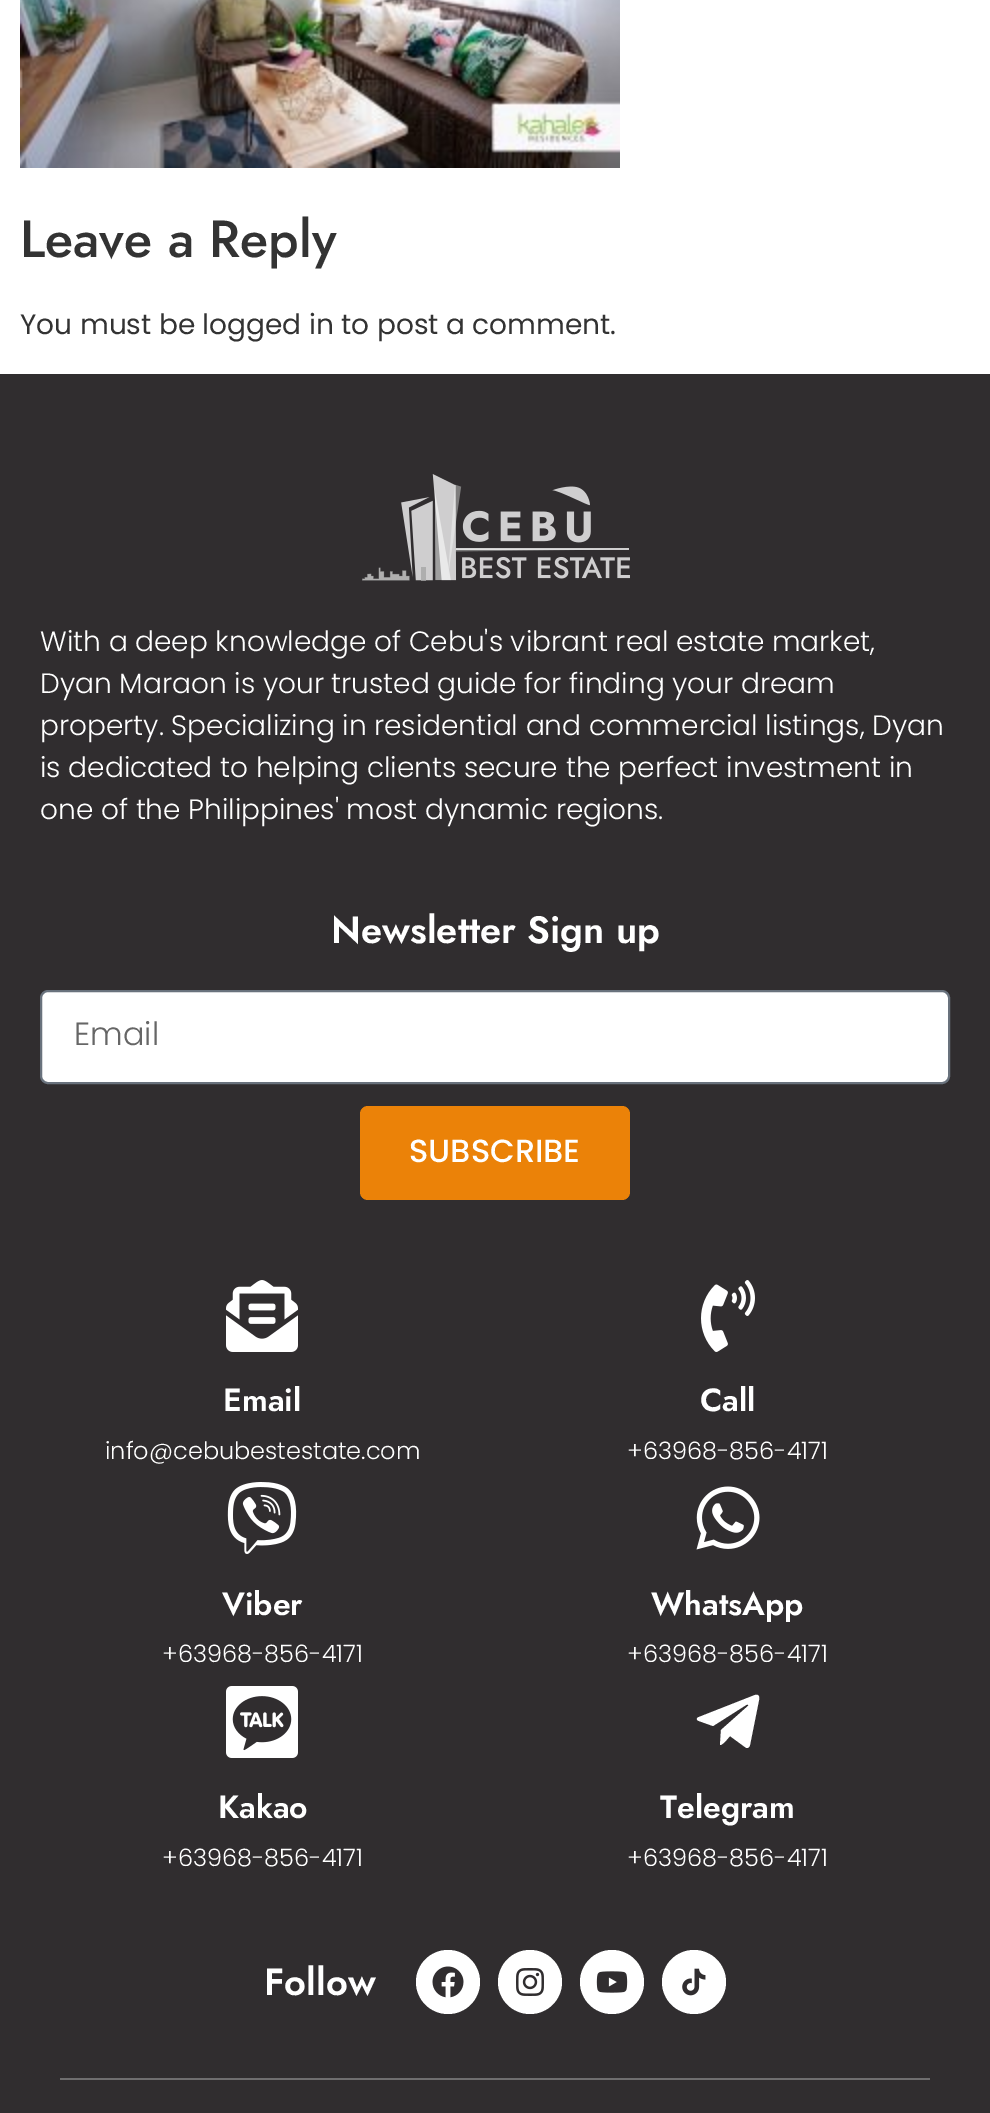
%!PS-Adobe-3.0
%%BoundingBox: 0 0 990 2113
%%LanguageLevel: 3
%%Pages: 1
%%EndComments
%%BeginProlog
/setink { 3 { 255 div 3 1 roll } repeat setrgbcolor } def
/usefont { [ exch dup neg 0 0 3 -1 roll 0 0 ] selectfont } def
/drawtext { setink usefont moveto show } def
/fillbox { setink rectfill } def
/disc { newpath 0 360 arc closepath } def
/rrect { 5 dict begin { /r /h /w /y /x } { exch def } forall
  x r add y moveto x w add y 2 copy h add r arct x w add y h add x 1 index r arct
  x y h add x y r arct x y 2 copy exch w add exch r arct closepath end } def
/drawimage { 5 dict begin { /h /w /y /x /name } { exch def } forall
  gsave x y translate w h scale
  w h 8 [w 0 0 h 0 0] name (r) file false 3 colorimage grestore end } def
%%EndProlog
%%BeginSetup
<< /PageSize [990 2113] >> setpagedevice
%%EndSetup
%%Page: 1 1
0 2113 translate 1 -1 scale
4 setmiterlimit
0 0 990 2113 255 255 255 fillbox
(assets/img1.rgb) 20 0 600 168 drawimage
(Leave a Reply) 20 257 /Jost-Medium 52 51 51 51 drawtext
(You must be logged in to post a comment.) 20 334 /Poppins-Regular 28 51 51 51 drawtext
0 374 990 1739 48 45 47 fillbox
(assets/img2.rgb) 362 474 268 107 drawimage
(With a deep knowledge of Cebu's vibrant real estate market,) 40 651 /Poppins-Light 28 255 255 255 drawtext
(Dyan Maraon is your trusted guide for finding your dream) 40 693 /Poppins-Light 28 255 255 255 drawtext
(property. Specializing in residential and commercial listings, Dyan) 40 735 /Poppins-Light 28 255 255 255 drawtext
(is dedicated to helping clients secure the perfect investment in) 40 777 /Poppins-Light 28 255 255 255 drawtext
(one of the Philippines' most dynamic regions.) 40 819 /Poppins-Light 28 255 255 255 drawtext
(Newsletter Sign up) 331 943 /Jost-SemiBold 38 255 255 255 drawtext
41 991 908 92 7 rrect gsave fill grestore
105 114 125 setink
2 setlinewidth
stroke
(Email) 74 1045 /Poppins-Light 32 102 102 102 drawtext
235 130 8 setink
360 1106 270 94 8 rrect fill
(SUBSCRIBE) 409 1162 /Poppins-Medium 32 255 255 255 drawtext
(assets/img3.rgb) 226 1280 72 72 drawimage
(Email) 223 1411 /Jost-SemiBold 32 255 255 255 drawtext
(info@cebubestestate.com) 105 1459 /Poppins-Light 24 255 255 255 drawtext
(assets/img4.rgb) 701 1280 54 72 drawimage
(Call) 700 1411 /Jost-SemiBold 32 255 255 255 drawtext
(+63968-856-4171) 627 1459 /Poppins-Light 24 255 255 255 drawtext
(assets/img5.rgb) 227 1482 70 72 drawimage
(Viber) 222 1615 /Jost-SemiBold 32 255 255 255 drawtext
(+63968-856-4171) 162 1662 /Poppins-Light 24 255 255 255 drawtext
(assets/img6.rgb) 696 1486 64 64 drawimage
(WhatsApp) 651 1615 /Jost-SemiBold 32 255 255 255 drawtext
(+63968-856-4171) 627 1662 /Poppins-Light 24 255 255 255 drawtext
(assets/img7.rgb) 226 1686 72 72 drawimage
(Kakao) 218 1818 /Jost-SemiBold 32 255 255 255 drawtext
(+63968-856-4171) 162 1866 /Poppins-Light 24 255 255 255 drawtext
759 1700 moveto 750 1745 lineto 749 1748 747 1749 745 1747 curveto 730 1736 lineto 728 1738 723 1745 720 1745 curveto 721 1730 lineto 748 1706 lineto 749 1705 748 1704 746 1705 curveto 713 1726 lineto 699 1721 lineto 696 1720 696 1718 699 1717 curveto 755 1695 lineto 758 1694 760 1696 759 1700 curveto closepath fill
(Telegram) 660 1818 /Jost-SemiBold 32 255 255 255 drawtext
(+63968-856-4171) 627 1866 /Poppins-Light 24 255 255 255 drawtext
(Follow) 264 1995 /Jost-SemiBold 38 255 255 255 drawtext
448 1982 32 disc fill
(assets/img8.rgb) 432 1966 32 32 drawimage
530 1982 32 disc fill
(assets/img9.rgb) 516 1968 28 28 drawimage
612 1982 32 disc fill
(assets/img10.rgb) 596 1971 32 22 drawimage
694 1982 32 disc fill
(assets/img11.rgb) 682 1968 24 28 drawimage
60 2078 870 2 111 110 111 fillbox
showpage
%%EOF
